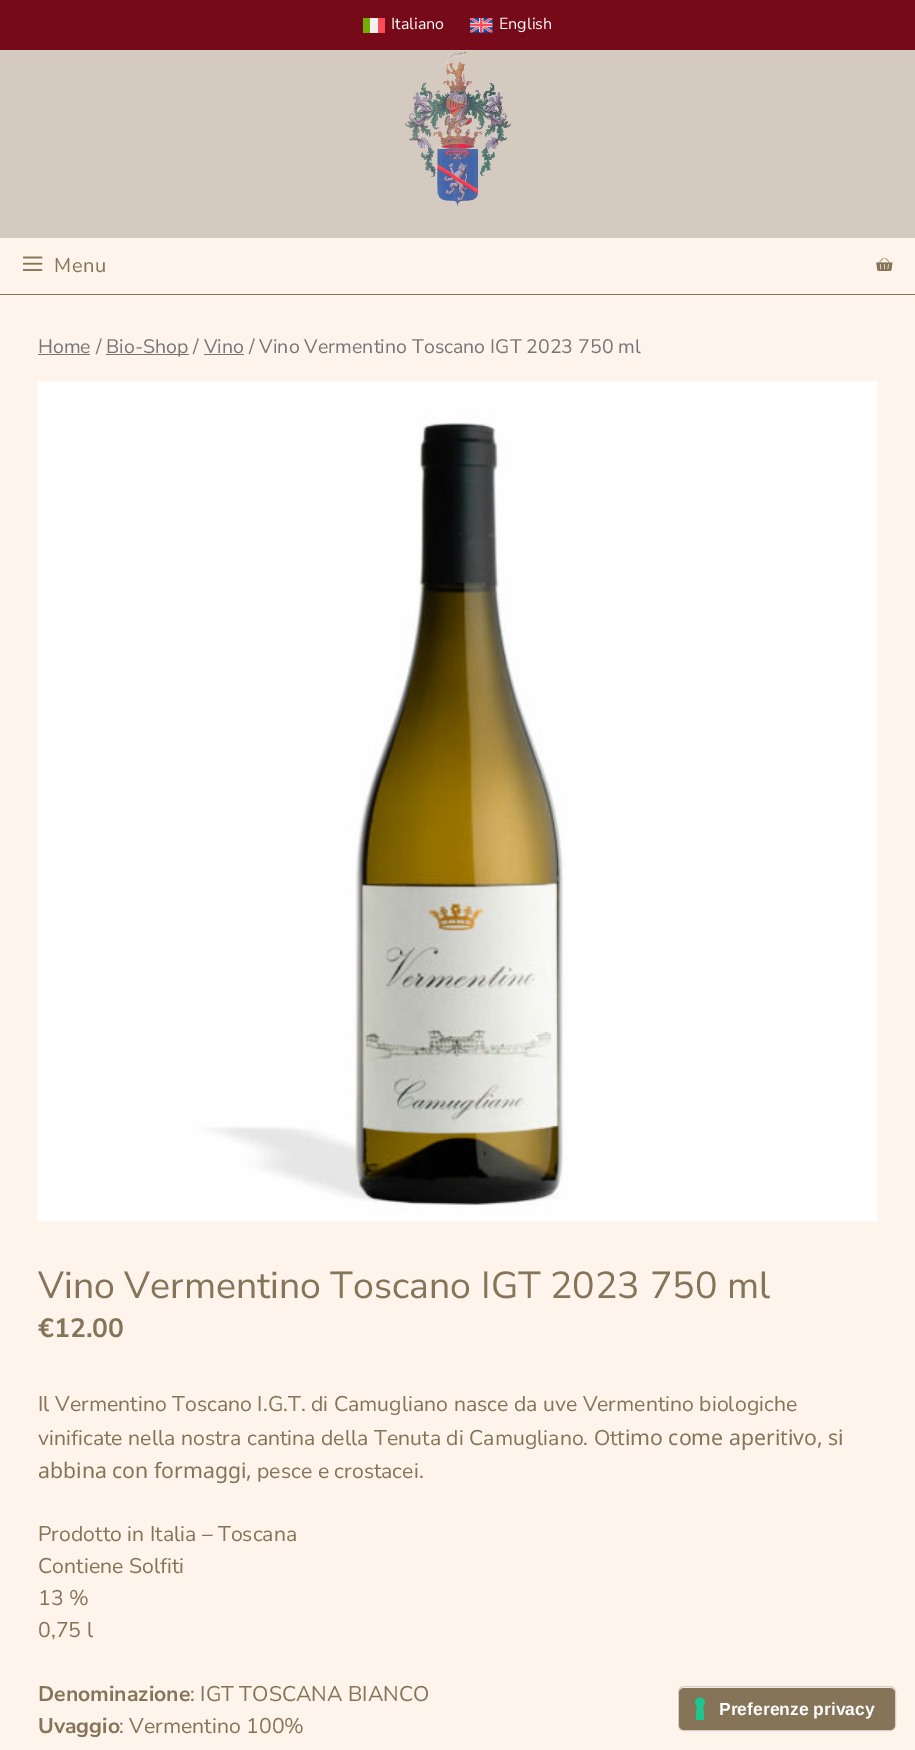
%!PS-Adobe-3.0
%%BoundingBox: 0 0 915 1750
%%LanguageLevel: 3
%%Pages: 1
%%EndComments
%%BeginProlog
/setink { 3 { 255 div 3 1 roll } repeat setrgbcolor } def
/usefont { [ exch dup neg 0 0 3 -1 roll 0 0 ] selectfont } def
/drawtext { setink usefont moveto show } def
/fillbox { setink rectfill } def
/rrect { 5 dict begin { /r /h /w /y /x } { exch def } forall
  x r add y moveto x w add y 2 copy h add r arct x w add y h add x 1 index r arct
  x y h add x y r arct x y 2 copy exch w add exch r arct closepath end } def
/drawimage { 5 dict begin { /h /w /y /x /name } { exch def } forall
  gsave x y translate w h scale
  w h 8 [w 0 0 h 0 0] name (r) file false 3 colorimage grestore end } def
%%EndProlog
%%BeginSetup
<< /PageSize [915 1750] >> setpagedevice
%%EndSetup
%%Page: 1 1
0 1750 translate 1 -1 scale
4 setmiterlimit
0 0 915 1750 255 255 255 fillbox
(assets/img1.rgb) 0 50 915 188 drawimage
0 0 915 50 118 10 25 fillbox
363 18 7 15 115 175 0 fillbox
370 18 8 15 240 240 240 fillbox
378 18 7 15 255 75 85 fillbox
(Italiano) 391 29 /NunitoSans-Regular 16 255 255 255 drawtext
(assets/img2.rgb) 470 18 23 15 drawimage
(English) 499 29 /NunitoSans-Regular 16 255 255 255 drawtext
(assets/img3.rgb) 404 50 107 156 drawimage
0 238 915 56 254 244 235 fillbox
0 294 915 1 134 116 88 fillbox
(assets/img4.rgb) 23 256 20 15 drawimage
/NunitoSans-Regular 20 usefont
54 272 moveto 0.5 0 (Menu) ashow
(assets/img5.rgb) 876 257 17 14 drawimage
0 295 915 1455 254 244 235 fillbox
38 354 52 1 118 118 118 fillbox
(Home /) 38 353 /NunitoSans-Regular 19.55 118 118 118 drawtext
106 354 83 1 118 118 118 fillbox
(Bio-Shop / Vino / Vino Vermentino Toscano IGT 2023 750 ml) 106 353 /NunitoSans-Regular 19.55 118 118 118 drawtext
204 354 40 1 118 118 118 fillbox
(assets/img6.rgb) 37 381 841 841 drawimage
(Vino Vermentino Toscano IGT 2023 750 ml) 38 1298 /NunitoSans-Regular 37.5 134 116 88 drawtext
(€12.00) 38 1337 /NunitoSans-Bold 26.5 134 116 88 drawtext
(Il Vermentino Toscano I.G.T. di Camugliano nasce da uve Vermentino biologiche) 38 1411 /NunitoSans-Regular 21.25 134 116 88 drawtext
(vinificate nella nostra cantina della Tenuta di Camugliano. Ot) 38 1445 /NunitoSans-Regular 21.25 134 116 88 drawtext
(timo come aperitivo, si) 617 1445 /NotoSans-Regular 21.25 134 116 88 drawtext
(abbina con formaggi,) 38 1478 /NotoSans-Regular 21.25 134 116 88 drawtext
(pesce e crostacei.) 257 1478 /NunitoSans-Regular 21.25 134 116 88 drawtext
(Prodotto in Italia – Toscana) 38 1541 /NunitoSans-Regular 21.25 134 116 88 drawtext
(Contiene Solfiti) 38 1573 /NunitoSans-Regular 21.25 134 116 88 drawtext
(13 %) 38 1605 /NunitoSans-Regular 21.25 134 116 88 drawtext
(0,75 l) 38 1637 /NunitoSans-Regular 21.25 134 116 88 drawtext
(Denominazione) 38 1701 /NunitoSans-Bold 21.25 134 116 88 drawtext
(: IGT TOSCANA BIANCO) 190 1701 /NunitoSans-Regular 21.25 134 116 88 drawtext
(Uvaggio) 38 1733 /NunitoSans-Bold 21.25 134 116 88 drawtext
(: Vermentino 100%) 119 1733 /NunitoSans-Regular 21.25 134 116 88 drawtext
216 207 200 setink
678.5 1686.5 217 44 5.5 rrect stroke
134 116 88 setink
679 1688 216 42 5 rrect fill
(assets/img7.rgb) 695 1697 10 23 drawimage
(Preferenze privacy) 719 1715 /LiberationSans-Bold 17.5 255 255 255 drawtext
showpage
%%EOF
